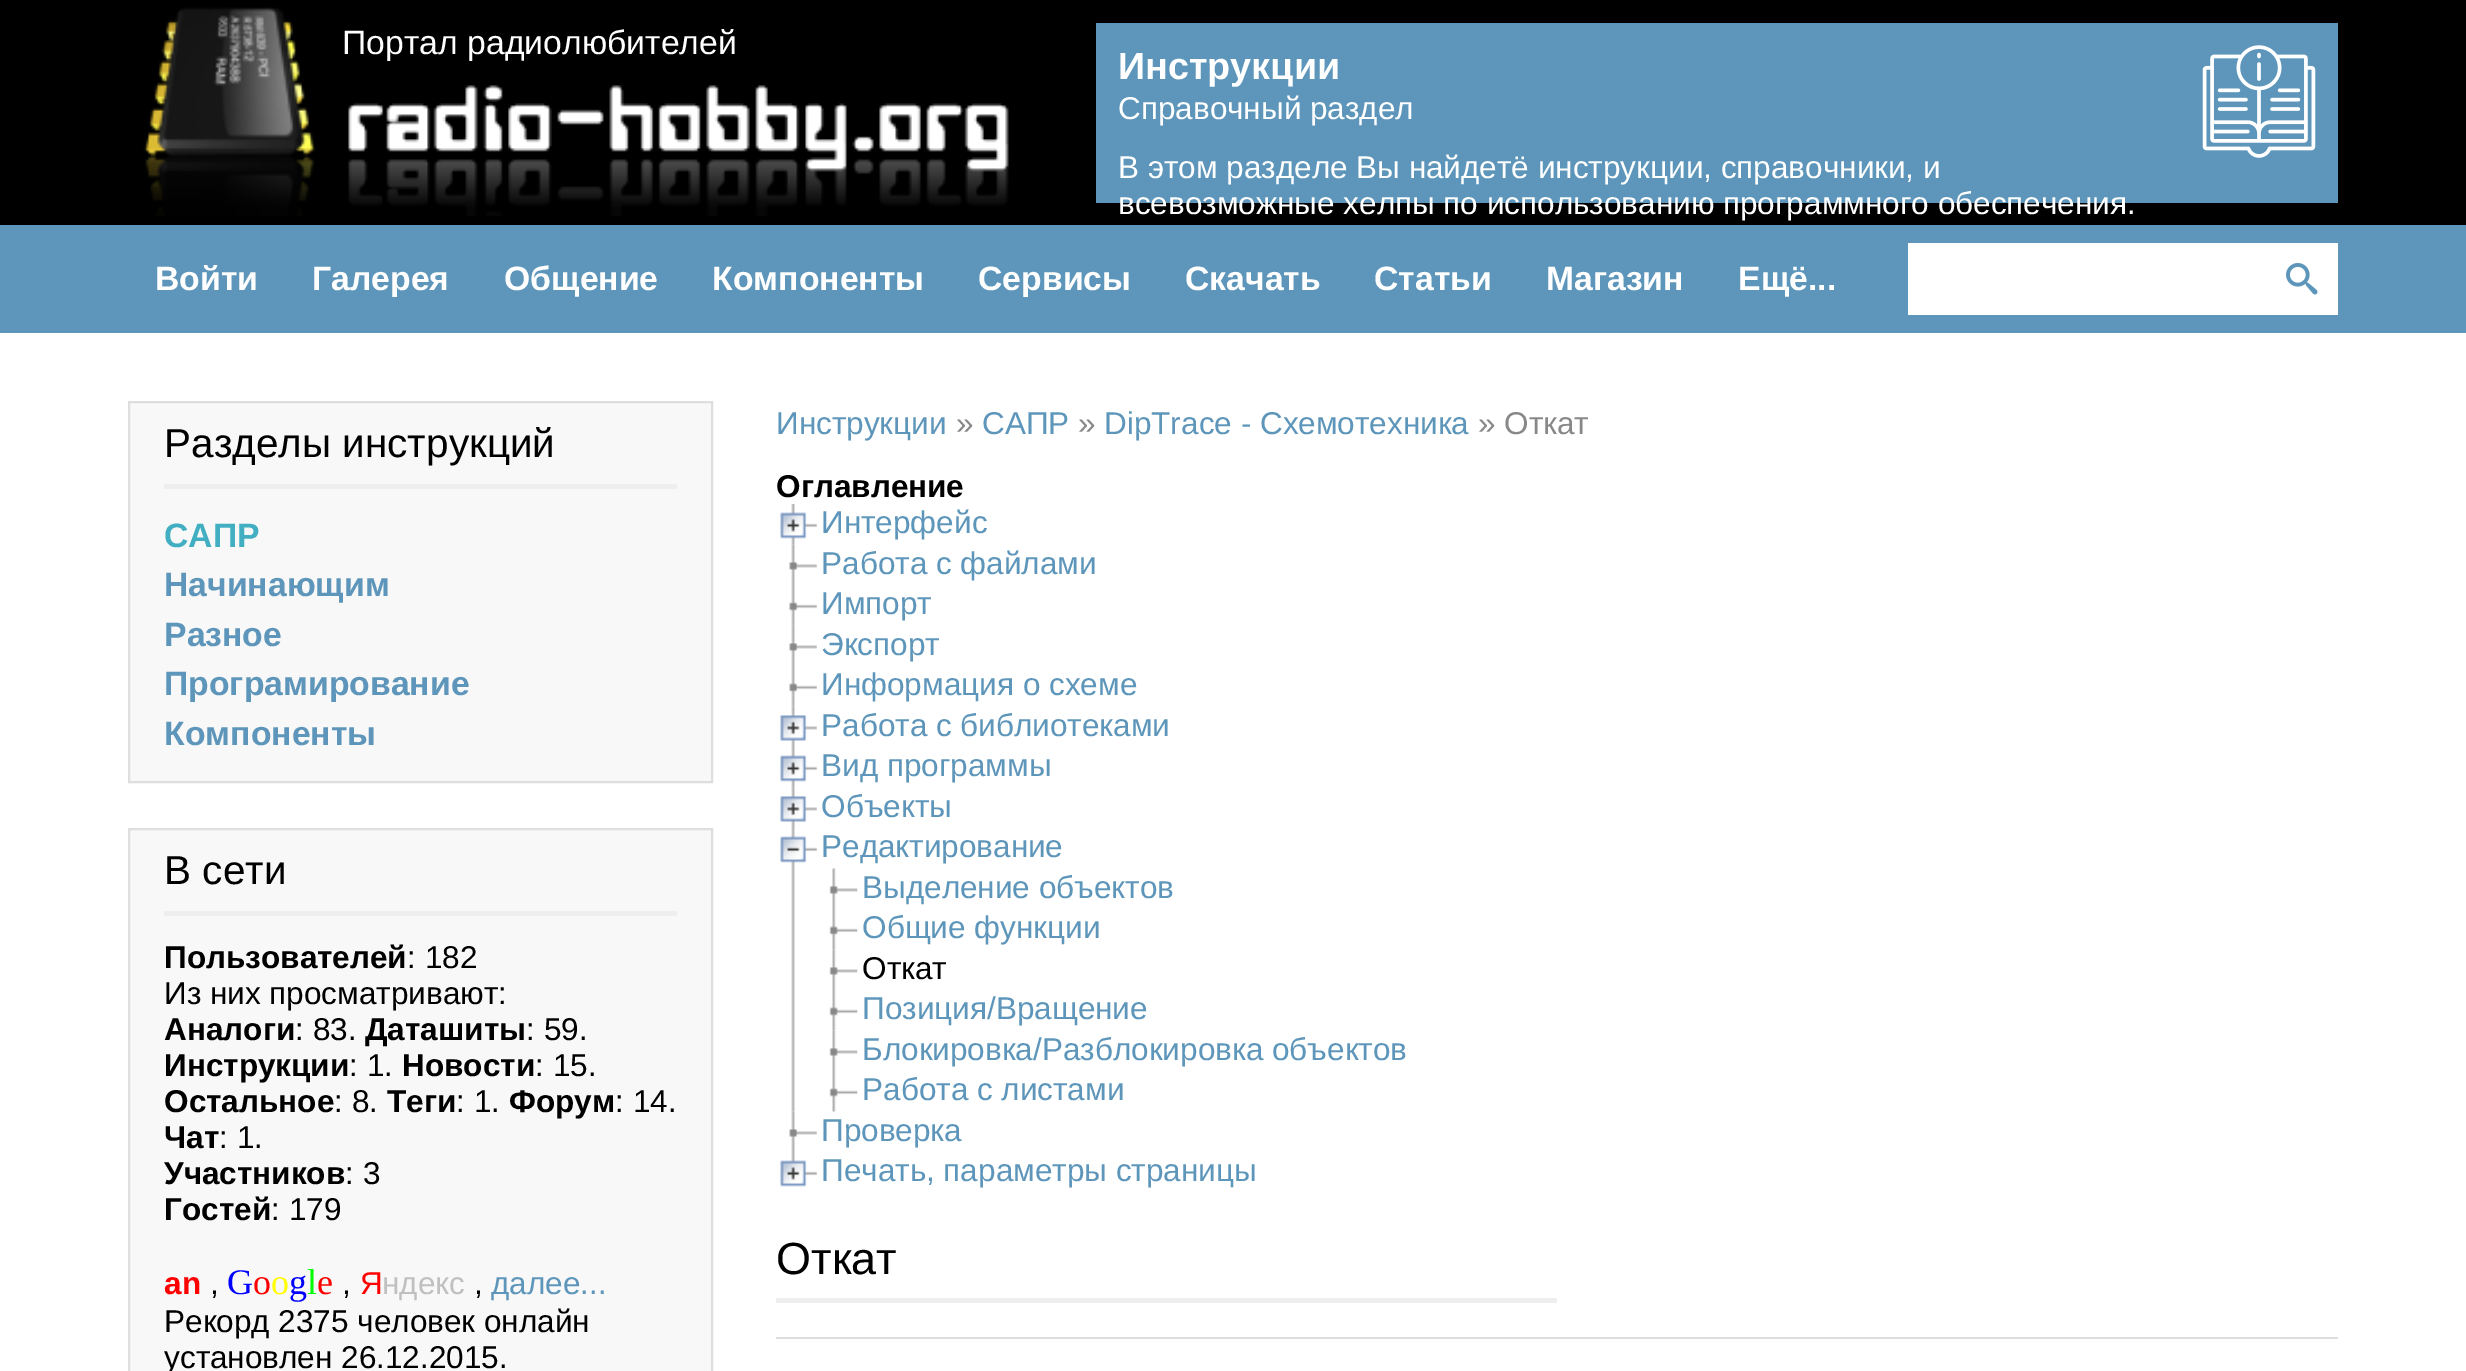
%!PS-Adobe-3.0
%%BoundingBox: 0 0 2466 1371
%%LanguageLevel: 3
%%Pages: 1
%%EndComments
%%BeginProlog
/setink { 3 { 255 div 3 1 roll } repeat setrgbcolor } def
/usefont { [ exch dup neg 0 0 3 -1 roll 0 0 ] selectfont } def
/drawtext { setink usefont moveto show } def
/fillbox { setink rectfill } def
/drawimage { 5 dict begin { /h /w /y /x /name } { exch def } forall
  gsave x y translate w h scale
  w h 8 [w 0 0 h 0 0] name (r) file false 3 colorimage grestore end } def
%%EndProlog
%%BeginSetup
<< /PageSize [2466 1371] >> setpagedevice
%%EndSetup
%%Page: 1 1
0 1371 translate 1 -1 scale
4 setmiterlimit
0 0 2466 1371 255 255 255 fillbox
0 0 2466 225 0 0 0 fillbox
(assets/img1.rgb) 143 7 866 209 drawimage
(Портал радиолюбителей) 342 54 /LiberationSans-Regular 33.75 255 255 255 drawtext
1096 23 1242 180 93 150 186 fillbox
(Инструкции) 1118 79 /LiberationSans-Bold 37.75 255 255 255 drawtext
(Справочный раздел) 1118 119 /LiberationSans-Regular 31.5 255 255 255 drawtext
(В этом разделе Вы найдетё инструкции, справочники, и) 1118 178 /LiberationSans-Regular 31.5 255 255 255 drawtext
(всевозможные хелпы по использованию программного обеспечения.) 1118 214 /LiberationSans-Regular 31.5 255 255 255 drawtext
(assets/img2.rgb) 2202 45 114 113 drawimage
0 225 2466 108 93 150 186 fillbox
(Войти) 155 290 /LiberationSans-Bold 33.75 255 255 255 drawtext
(Галерея) 312 290 /LiberationSans-Bold 33.75 255 255 255 drawtext
(Общение) 504 290 /LiberationSans-Bold 33.75 255 255 255 drawtext
(Компоненты) 712 290 /LiberationSans-Bold 33.75 255 255 255 drawtext
(Сервисы) 978 290 /LiberationSans-Bold 33.75 255 255 255 drawtext
(Скачать) 1185 290 /LiberationSans-Bold 33.75 255 255 255 drawtext
(Статьи) 1374 290 /LiberationSans-Bold 33.75 255 255 255 drawtext
(Магазин) 1546 290 /LiberationSans-Bold 33.75 255 255 255 drawtext
(Ещё...) 1738 290 /LiberationSans-Bold 33.75 255 255 255 drawtext
1908 243 430 72 255 255 255 fillbox
(assets/img3.rgb) 2286 263 32 32 drawimage
248 248 248 setink
129 402 moveto 712 402 lineto 712 782 lineto 129 782 lineto closepath gsave fill grestore
222 222 222 setink
2 setlinewidth
stroke
164 484 513 5 238 238 238 fillbox
(Разделы инструкций) 164 457 /LiberationSans-Regular 40.5 0 0 0 drawtext
(САПР) 164 547 /LiberationSans-Bold 33.75 66 174 194 drawtext
(Начинающим) 164 596 /LiberationSans-Bold 33.75 93 150 186 drawtext
(Разное) 164 646 /LiberationSans-Bold 33.75 93 150 186 drawtext
(Програмирование) 164 695 /LiberationSans-Bold 33.75 93 150 186 drawtext
(Компоненты) 164 745 /LiberationSans-Bold 33.75 93 150 186 drawtext
248 248 248 setink
129 829 moveto 712 829 lineto 712 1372 lineto 129 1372 lineto closepath gsave fill grestore
222 222 222 setink
stroke
164 911 513 5 238 238 238 fillbox
(В сети) 164 884 /LiberationSans-Regular 40.5 0 0 0 drawtext
(Пользователей) 164 968 /LiberationSans-Bold 31.5 0 0 0 drawtext
(: 182) 407 968 /LiberationSans-Regular 31.5 0 0 0 drawtext
(Из них просматривают:) 164 1004 /LiberationSans-Regular 31.5 0 0 0 drawtext
(Аналоги) 164 1040 /LiberationSans-Bold 31.5 0 0 0 drawtext
(: 83.) 295 1040 /LiberationSans-Regular 31.5 0 0 0 drawtext
(Даташиты) 365 1040 /LiberationSans-Bold 31.5 0 0 0 drawtext
(: 59.) 526 1040 /LiberationSans-Regular 31.5 0 0 0 drawtext
(Инструкции) 164 1076 /LiberationSans-Bold 31.5 0 0 0 drawtext
(: 1.) 349 1076 /LiberationSans-Regular 31.5 0 0 0 drawtext
(Новости) 402 1076 /LiberationSans-Bold 31.5 0 0 0 drawtext
(: 15.) 535 1076 /LiberationSans-Regular 31.5 0 0 0 drawtext
(Остальное) 164 1112 /LiberationSans-Bold 31.5 0 0 0 drawtext
(: 8.) 334 1112 /LiberationSans-Regular 31.5 0 0 0 drawtext
(Теги) 387 1112 /LiberationSans-Bold 31.5 0 0 0 drawtext
(: 1.) 456 1112 /LiberationSans-Regular 31.5 0 0 0 drawtext
(Форум) 509 1112 /LiberationSans-Bold 31.5 0 0 0 drawtext
(: 14.) 615 1112 /LiberationSans-Regular 31.5 0 0 0 drawtext
(Чат) 164 1148 /LiberationSans-Bold 31.5 0 0 0 drawtext
(: 1.) 219 1148 /LiberationSans-Regular 31.5 0 0 0 drawtext
(Участников) 164 1184 /LiberationSans-Bold 31.5 0 0 0 drawtext
(: 3) 345 1184 /LiberationSans-Regular 31.5 0 0 0 drawtext
(Гостей) 164 1220 /LiberationSans-Bold 31.5 0 0 0 drawtext
(: 179) 271 1220 /LiberationSans-Regular 31.5 0 0 0 drawtext
(an) 164 1294 /LiberationSans-Bold 31.5 255 0 0 drawtext
(,) 210 1294 /LiberationSans-Regular 31.5 0 0 0 drawtext
(G) 227 1294 /LiberationSerif-Regular 36 0 0 255 drawtext
(o) 253 1294 /LiberationSerif-Regular 36 255 0 0 drawtext
(o) 271 1294 /LiberationSerif-Regular 36 255 255 0 drawtext
(g) 289 1294 /LiberationSerif-Regular 36 0 0 255 drawtext
(l) 307 1294 /LiberationSerif-Regular 36 0 255 0 drawtext
(e) 317 1294 /LiberationSerif-Regular 36 255 0 0 drawtext
(,) 342 1294 /LiberationSans-Regular 31.5 0 0 0 drawtext
(Я) 360 1294 /LiberationSans-Regular 31.5 255 0 0 drawtext
(ндекс) 382 1294 /LiberationSans-Regular 31.5 192 192 192 drawtext
(,) 474 1294 /LiberationSans-Regular 31.5 0 0 0 drawtext
(далее...) 491 1294 /LiberationSans-Regular 31.5 93 150 186 drawtext
(Рекорд 2375 человек онлайн) 164 1332 /LiberationSans-Regular 31.5 0 0 0 drawtext
(установлен 26.12.2015.) 164 1368 /LiberationSans-Regular 31.5 0 0 0 drawtext
(Инструкции) 776 434 /LiberationSans-Regular 31.5 93 150 186 drawtext
(») 956 434 /LiberationSans-Regular 31.5 136 136 136 drawtext
(САПР) 982 434 /LiberationSans-Regular 31.5 93 150 186 drawtext
(») 1078 434 /LiberationSans-Regular 31.5 136 136 136 drawtext
(DipTrace - Схемотехника) 1104 434 /LiberationSans-Regular 31.5 93 150 186 drawtext
(» Откат) 1478 434 /LiberationSans-Regular 31.5 136 136 136 drawtext
(Оглавление) 776 497 /LiberationSans-Bold 31.5 0 0 0 drawtext
(assets/img4.rgb) 791 504 4 41 drawimage
(assets/img5.rgb) 780 512 37 27 drawimage
(Интерфейс) 821 533 /LiberationSans-Regular 31.5 93 150 186 drawtext
(assets/img6.rgb) 791 544 4 41 drawimage
(assets/img7.rgb) 789 562 28 8 drawimage
(Работа с файлами) 821 574 /LiberationSans-Regular 31.5 93 150 186 drawtext
(assets/img4.rgb) 791 585 4 41 drawimage
(assets/img8.rgb) 789 602 28 9 drawimage
(Импорт) 821 614 /LiberationSans-Regular 31.5 93 150 186 drawtext
(assets/img6.rgb) 791 625 4 41 drawimage
(assets/img7.rgb) 789 643 28 8 drawimage
(Экспорт) 821 655 /LiberationSans-Regular 31.5 93 150 186 drawtext
(assets/img4.rgb) 791 666 4 41 drawimage
(assets/img8.rgb) 789 683 28 9 drawimage
(Информация о схеме) 821 695 /LiberationSans-Regular 31.5 93 150 186 drawtext
(assets/img6.rgb) 791 706 4 41 drawimage
(assets/img9.rgb) 780 715 37 26 drawimage
(Работа с библиотеками) 821 736 /LiberationSans-Regular 31.5 93 150 186 drawtext
(assets/img4.rgb) 791 747 4 41 drawimage
(assets/img5.rgb) 780 755 37 27 drawimage
(Вид программы) 821 776 /LiberationSans-Regular 31.5 93 150 186 drawtext
(assets/img6.rgb) 791 787 4 41 drawimage
(assets/img9.rgb) 780 796 37 26 drawimage
(Объекты) 821 817 /LiberationSans-Regular 31.5 93 150 186 drawtext
(assets/img10.rgb) 791 828 4 284 drawimage
(assets/img11.rgb) 780 836 37 27 drawimage
(Редактирование) 821 857 /LiberationSans-Regular 31.5 93 150 186 drawtext
(assets/img12.rgb) 832 868 4 41 drawimage
(assets/img13.rgb) 829 886 29 8 drawimage
(Выделение объектов) 862 898 /LiberationSans-Regular 31.5 93 150 186 drawtext
(assets/img14.rgb) 832 909 4 41 drawimage
(assets/img15.rgb) 829 926 29 9 drawimage
(Общие функции) 862 938 /LiberationSans-Regular 31.5 93 150 186 drawtext
(assets/img16.rgb) 832 949 4 41 drawimage
(assets/img13.rgb) 829 967 29 8 drawimage
(Откат) 862 979 /LiberationSans-Regular 31.5 0 0 0 drawtext
(assets/img14.rgb) 832 990 4 41 drawimage
(assets/img15.rgb) 829 1007 29 9 drawimage
(Позиция/Вращение) 862 1019 /LiberationSans-Regular 31.5 93 150 186 drawtext
(assets/img16.rgb) 832 1030 4 41 drawimage
(assets/img13.rgb) 829 1048 29 8 drawimage
(Блокировка/Разблокировка объектов) 862 1060 /LiberationSans-Regular 31.5 93 150 186 drawtext
(assets/img14.rgb) 832 1071 4 41 drawimage
(assets/img15.rgb) 829 1088 29 9 drawimage
(Работа с листами) 862 1100 /LiberationSans-Regular 31.5 93 150 186 drawtext
(assets/img17.rgb) 791 1111 4 41 drawimage
(assets/img7.rgb) 789 1129 28 8 drawimage
(Проверка) 821 1141 /LiberationSans-Regular 31.5 93 150 186 drawtext
(assets/img18.rgb) 791 1152 4 10 drawimage
(assets/img19.rgb) 780 1160 37 27 drawimage
(Печать, параметры страницы) 821 1181 /LiberationSans-Regular 31.5 93 150 186 drawtext
776 1337 1562 2 221 221 221 fillbox
776 1298 781 5 238 238 238 fillbox
(Откат) 776 1274 /LiberationSans-Regular 45 0 0 0 drawtext
showpage
%%EOF
